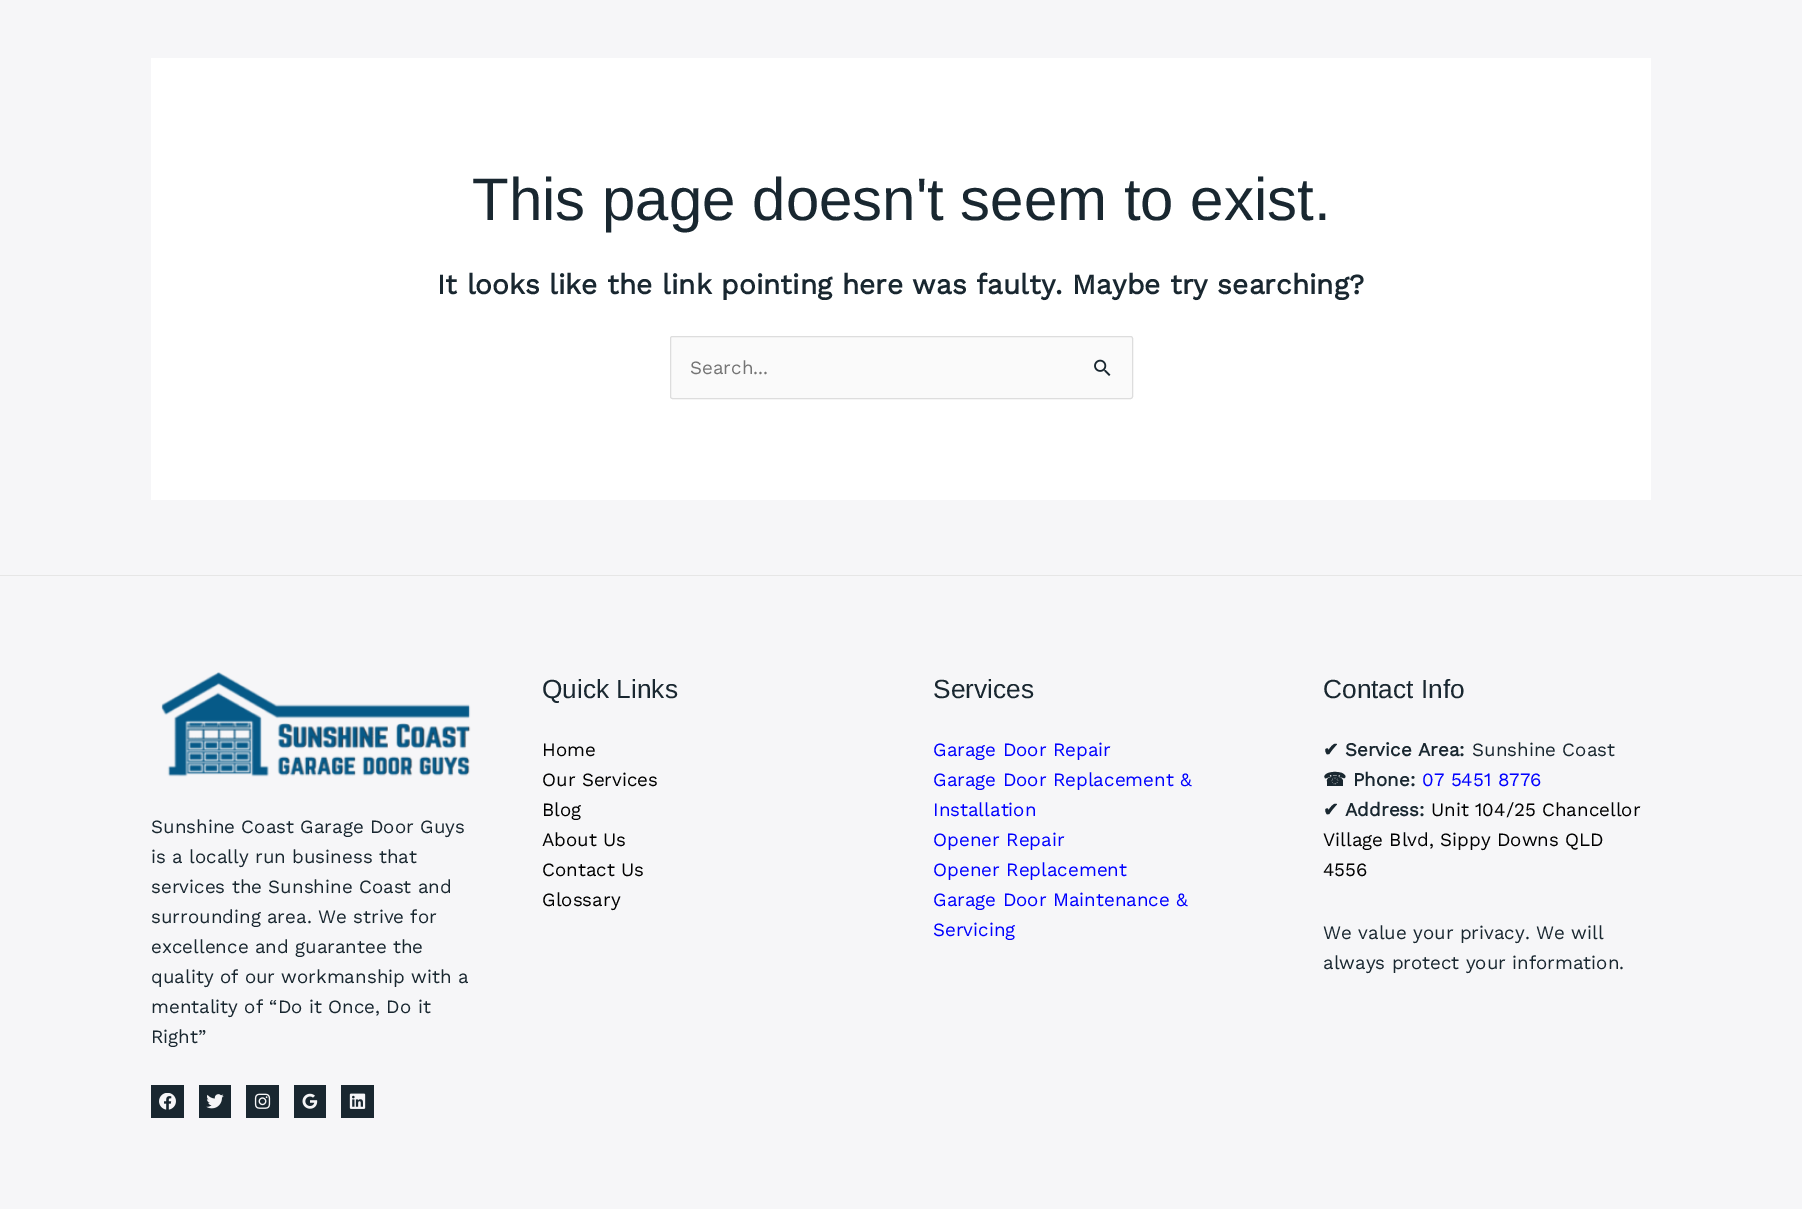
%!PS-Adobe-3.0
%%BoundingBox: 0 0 1802 1209
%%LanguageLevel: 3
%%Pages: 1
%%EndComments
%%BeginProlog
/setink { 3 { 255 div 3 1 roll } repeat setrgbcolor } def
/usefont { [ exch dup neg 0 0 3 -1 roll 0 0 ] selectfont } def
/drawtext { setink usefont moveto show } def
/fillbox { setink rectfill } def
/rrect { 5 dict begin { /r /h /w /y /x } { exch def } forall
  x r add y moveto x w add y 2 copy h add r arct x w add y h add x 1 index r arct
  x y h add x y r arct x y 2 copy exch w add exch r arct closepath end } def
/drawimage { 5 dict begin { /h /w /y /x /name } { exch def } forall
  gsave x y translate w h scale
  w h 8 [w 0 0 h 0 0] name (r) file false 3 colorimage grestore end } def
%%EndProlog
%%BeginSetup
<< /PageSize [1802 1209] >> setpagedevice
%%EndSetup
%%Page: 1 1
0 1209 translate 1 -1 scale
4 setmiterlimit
0 0 1802 1209 246 246 248 fillbox
151 58 1500 442 255 255 255 fillbox
(This page doesn't seem to exist.) 472 220 /LiberationSans-Regular 60 25 39 48 drawtext
(It looks like the link pointing here was faulty. Maybe try searching?) 437 294 /WorkSans-Bold 28.1 25 39 48 drawtext
250 250 250 setink
670.5 336.5 462 62 2 rrect gsave fill grestore
221 221 221 setink
stroke
(Search...) 690 374 /WorkSans-Regular 18.75 117 117 117 drawtext
(assets/img1.rgb) 1094 359 17 17 drawimage
0 575 1802 1 230 230 230 fillbox
(assets/img2.rgb) 161 672 310 105 drawimage
(Sunshine Coast Garage Door Guys) 151 833 /WorkSans-Regular 18.75 25 39 48 drawtext
(is a locally run business that) 151 863 /WorkSans-Regular 18.75 25 39 48 drawtext
(services the Sunshine Coast and) 151 893 /WorkSans-Regular 18.75 25 39 48 drawtext
(surrounding area. We strive for) 151 923 /WorkSans-Regular 18.75 25 39 48 drawtext
(excellence and guarantee the) 151 953 /WorkSans-Regular 18.75 25 39 48 drawtext
(quality of our workmanship with a) 151 983 /WorkSans-Regular 18.75 25 39 48 drawtext
(mentality of “Do it Once, Do it) 151 1013 /WorkSans-Regular 18.75 25 39 48 drawtext
(Right”) 151 1043 /WorkSans-Regular 18.75 25 39 48 drawtext
151 1085 33 33 25 39 48 fillbox
(assets/img3.rgb) 159 1093 17 17 drawimage
199 1085 32 33 25 39 48 fillbox
(assets/img4.rgb) 206 1094 18 15 drawimage
246 1085 33 33 25 39 48 fillbox
(assets/img5.rgb) 254 1093 17 16 drawimage
294 1085 32 33 25 39 48 fillbox
(assets/img6.rgb) 302 1093 16 16 drawimage
341 1085 33 33 25 39 48 fillbox
(assets/img7.rgb) 349 1093 17 16 drawimage
(Quick Links) 542 698 /LiberationSans-Regular 26.25 25 39 48 drawtext
(Home) 542 756 /WorkSans-Regular 18.75 0 0 0 drawtext
(Our Services) 542 786 /WorkSans-Regular 18.75 0 0 0 drawtext
(Blog) 542 816 /WorkSans-Regular 18.75 0 0 0 drawtext
(About Us) 542 846 /WorkSans-Regular 18.75 0 0 0 drawtext
(Contact Us) 542 876 /WorkSans-Regular 18.75 0 0 0 drawtext
(Glossary) 542 906 /WorkSans-Regular 18.75 0 0 0 drawtext
(Services) 933 698 /LiberationSans-Regular 26.25 25 39 48 drawtext
(Garage Door Repair) 933 756 /WorkSans-Regular 18.75 0 0 255 drawtext
(Garage Door Replacement &) 933 786 /WorkSans-Regular 18.75 0 0 255 drawtext
(Installation) 933 816 /WorkSans-Regular 18.75 0 0 255 drawtext
(Opener Repair) 933 846 /WorkSans-Regular 18.75 0 0 255 drawtext
(Opener Replacement) 933 876 /WorkSans-Regular 18.75 0 0 255 drawtext
(Garage Door Maintenance &) 933 906 /WorkSans-Regular 18.75 0 0 255 drawtext
(Servicing) 933 936 /WorkSans-Regular 18.75 0 0 255 drawtext
(Contact Info) 1323 698 /LiberationSans-Regular 26.25 25 39 48 drawtext
(✔) 1323 756 /DejaVuSans-Bold 18.75 25 39 48 drawtext
(Service Area:) 1345 756 /WorkSans-Bold 18.75 25 39 48 drawtext
(Sunshine Coast) 1472 756 /WorkSans-Regular 18.75 25 39 48 drawtext
(☎) 1323 786 /DejaVuSans-Bold 18.75 25 39 48 drawtext
(Phone:) 1353 786 /WorkSans-Bold 18.75 25 39 48 drawtext
(07 5451 8776) 1422 786 /WorkSans-Regular 18.75 0 0 255 drawtext
(✔) 1323 816 /DejaVuSans-Bold 18.75 25 39 48 drawtext
(Address:) 1345 816 /WorkSans-Bold 18.75 25 39 48 drawtext
(Unit 104/25 Chancellor) 1431 816 /WorkSans-Regular 18.75 0 0 0 drawtext
(Village Blvd, Sippy Downs QLD) 1323 846 /WorkSans-Regular 18.75 0 0 0 drawtext
(4556) 1323 876 /WorkSans-Regular 18.75 0 0 0 drawtext
(We value your privacy. We will) 1323 939 /WorkSans-Regular 18.75 25 39 48 drawtext
(always protect your information.) 1323 969 /WorkSans-Regular 18.75 25 39 48 drawtext
showpage
%%EOF
